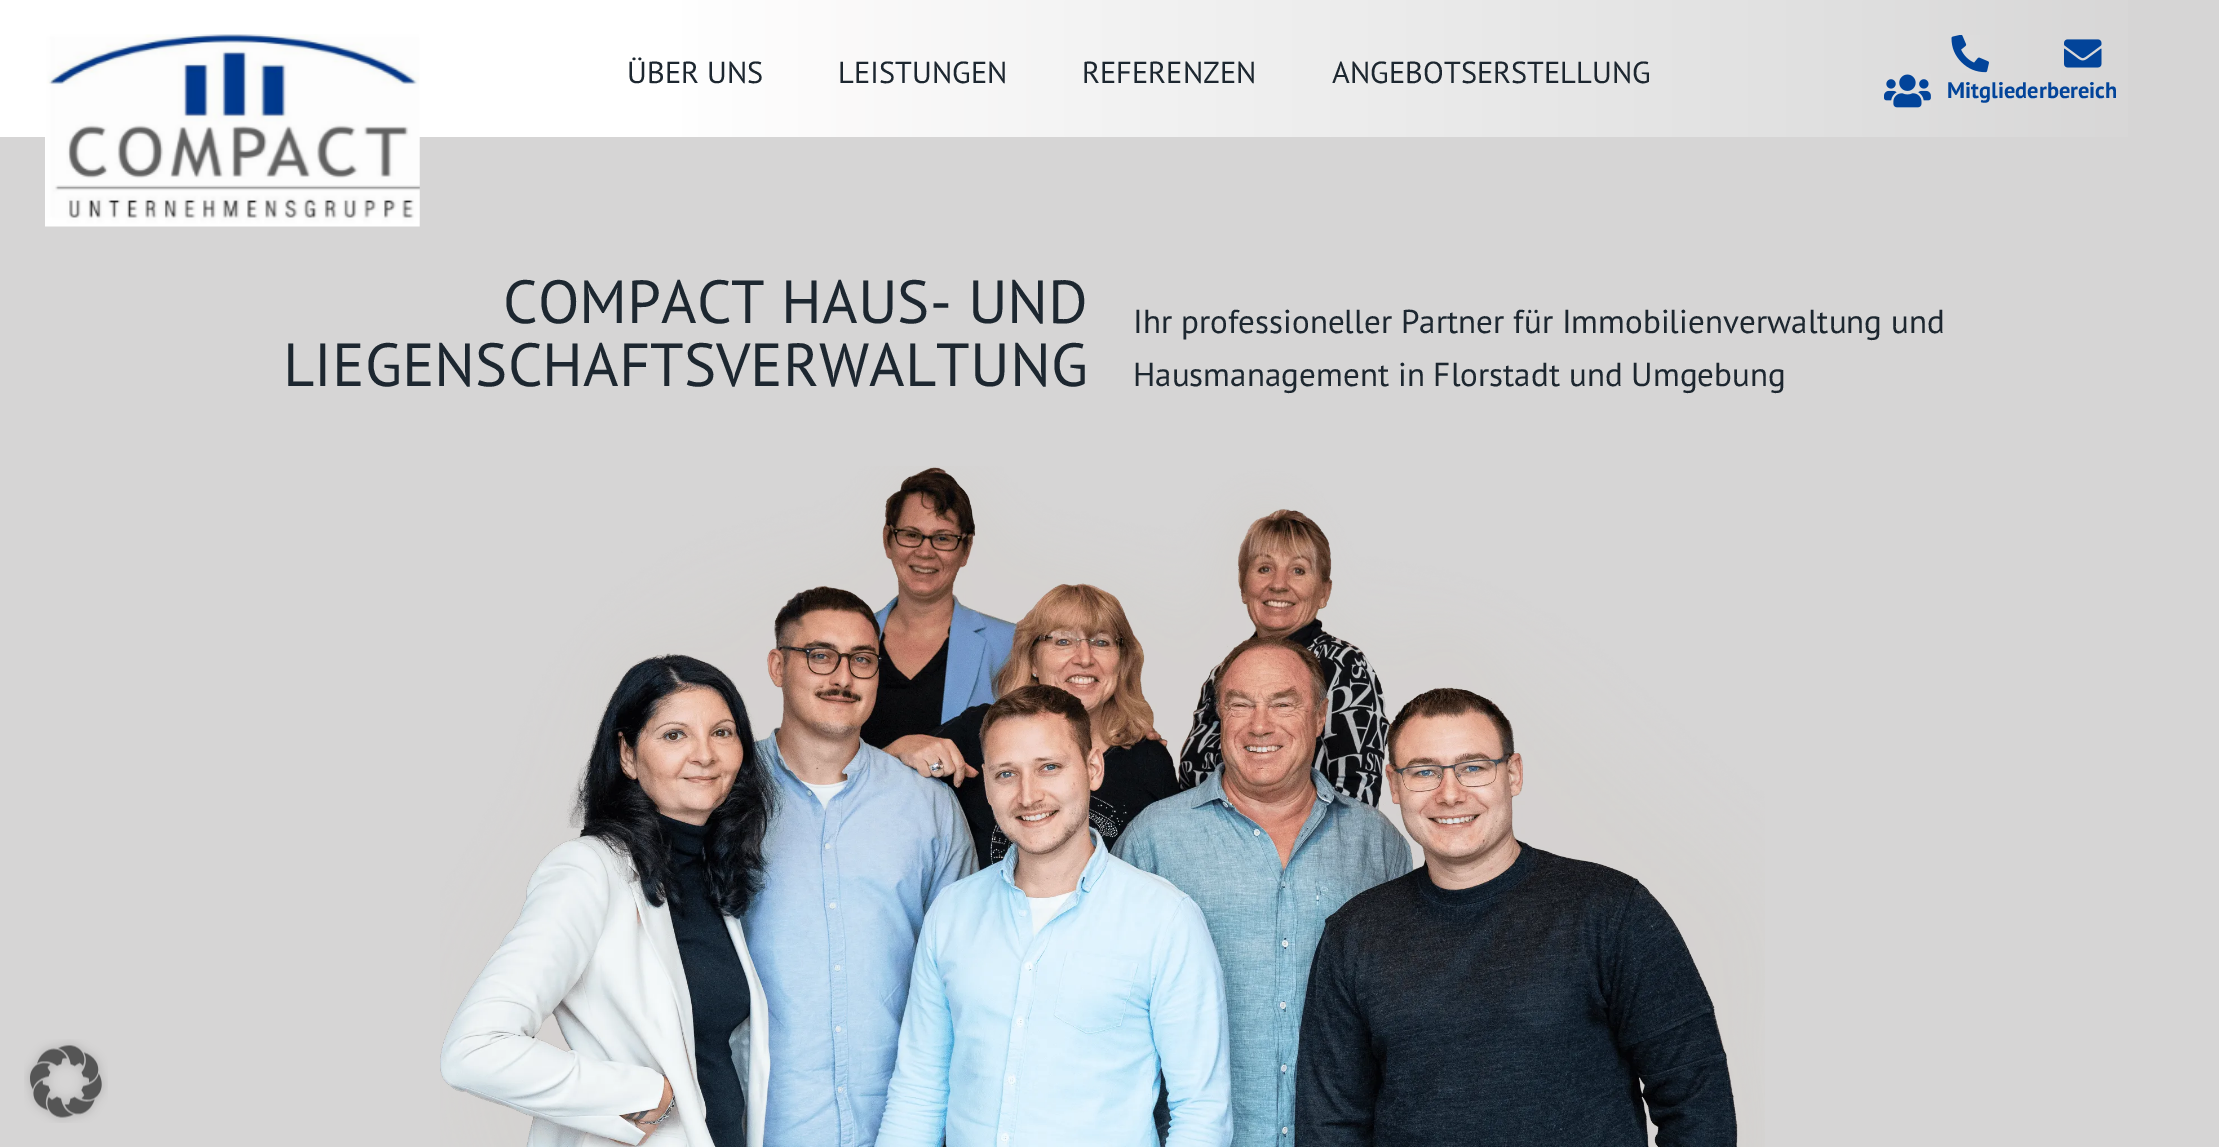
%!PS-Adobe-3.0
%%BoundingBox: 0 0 2219 1147
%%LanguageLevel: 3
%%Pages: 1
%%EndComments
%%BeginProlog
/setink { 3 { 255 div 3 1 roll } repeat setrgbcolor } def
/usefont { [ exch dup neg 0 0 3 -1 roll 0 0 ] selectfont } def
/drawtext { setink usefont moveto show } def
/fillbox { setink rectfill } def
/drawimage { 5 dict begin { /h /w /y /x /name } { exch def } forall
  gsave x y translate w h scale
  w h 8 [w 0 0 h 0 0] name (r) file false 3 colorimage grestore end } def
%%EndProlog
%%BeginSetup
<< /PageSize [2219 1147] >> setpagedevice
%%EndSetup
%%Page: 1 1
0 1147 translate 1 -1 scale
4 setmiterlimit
0 0 2219 1147 214 213 213 fillbox
gsave 0 0 moveto 2128 0 lineto 2128 137 lineto 0 137 lineto closepath clip newpath
<< /ShadingType 2 /ColorSpace /DeviceRGB /Coords [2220 68 0 68] /Extend [true true] /Function << /FunctionType 3 /Domain [0 1] /Functions [<< /FunctionType 2 /Domain [0 1] /C0 [0.839 0.835 0.835] /C1 [1 1 1] /N 1 >> << /FunctionType 2 /Domain [0 1] /C0 [1 1 1] /C1 [1 1 1] /N 1 >>] /Bounds [0.7] /Encode [0 1 0 1] >> >> shfill grestore
(assets/img1.rgb) 45 34 375 193 drawimage
(ÜBER UNS) 627 83 /PTSans-Regular 30.4 29 39 48 drawtext
(LEISTUNGEN) 838 83 /PTSans-Regular 30.4 29 39 48 drawtext
(REFERENZEN) 1082 83 /PTSans-Regular 30.4 29 39 48 drawtext
(ANGEBOTSERSTELLUNG) 1332 83 /PTSans-Regular 30.4 29 39 48 drawtext
(assets/img2.rgb) 1951 35 38 38 drawimage
(assets/img3.rgb) 2064 39 38 29 drawimage
(assets/img4.rgb) 1884 74 47 34 drawimage
(Mitgliederbereich) 1947 98 /PTSans-Bold 22.5 2 68 154 drawtext
(COMPACT HAUS- UND) 503 323 /PTSans-Regular 60.75 29 39 48 drawtext
(LIEGENSCHAFTSVERWALTUNG) 283 386 /PTSans-Regular 60.75 29 39 48 drawtext
(Ihr professioneller Partner für Immobilienverwaltung und) 1133 333 /PTSans-Regular 33.1 29 39 48 drawtext
(Hausmanagement in Florstadt und Umgebung) 1133 386 /PTSans-Regular 33.1 29 39 48 drawtext
(assets/img5.rgb) 440 466 1325 681 drawimage
(assets/img6.rgb) 24 1039 84 84 drawimage
showpage
%%EOF
